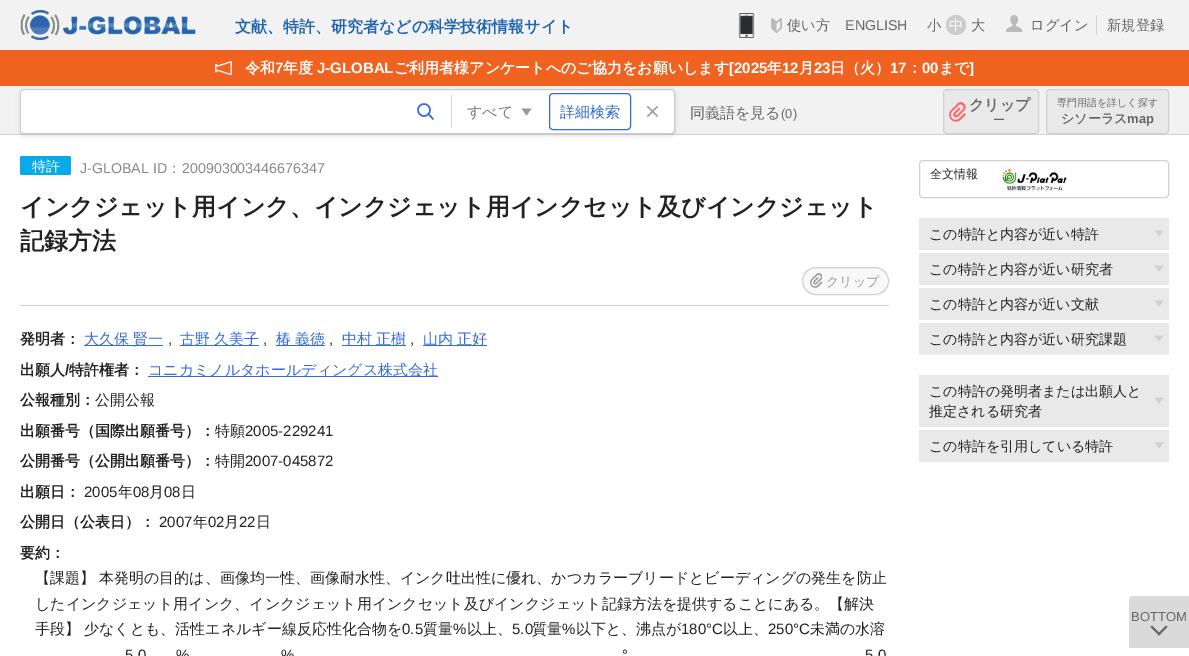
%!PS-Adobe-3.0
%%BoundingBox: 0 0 1189 656
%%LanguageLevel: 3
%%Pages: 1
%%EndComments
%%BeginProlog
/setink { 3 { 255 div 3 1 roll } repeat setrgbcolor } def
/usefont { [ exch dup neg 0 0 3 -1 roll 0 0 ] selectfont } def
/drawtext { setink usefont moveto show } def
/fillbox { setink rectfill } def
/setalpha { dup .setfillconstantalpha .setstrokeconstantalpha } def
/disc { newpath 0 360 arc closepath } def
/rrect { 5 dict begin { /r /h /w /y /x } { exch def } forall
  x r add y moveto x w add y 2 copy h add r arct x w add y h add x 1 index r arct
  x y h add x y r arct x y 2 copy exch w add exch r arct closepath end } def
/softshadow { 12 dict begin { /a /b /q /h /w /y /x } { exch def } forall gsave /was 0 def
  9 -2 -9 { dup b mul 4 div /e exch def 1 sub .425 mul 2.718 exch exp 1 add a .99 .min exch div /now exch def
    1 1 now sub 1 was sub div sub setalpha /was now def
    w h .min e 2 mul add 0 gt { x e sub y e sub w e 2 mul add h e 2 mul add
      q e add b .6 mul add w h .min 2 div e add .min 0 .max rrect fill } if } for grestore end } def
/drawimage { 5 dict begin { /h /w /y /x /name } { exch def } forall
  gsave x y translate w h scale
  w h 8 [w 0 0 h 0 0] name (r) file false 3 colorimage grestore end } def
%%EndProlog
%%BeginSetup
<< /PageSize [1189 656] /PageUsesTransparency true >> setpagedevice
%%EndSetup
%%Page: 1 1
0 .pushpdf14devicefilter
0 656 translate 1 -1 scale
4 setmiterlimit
0 0 1189 656 255 255 255 fillbox
0 0 1189 50 242 242 242 fillbox
(assets/img1.rgb) 20 10 176 30 drawimage
(文献、特許、研究者などの科学技術情報サイト) 235 32 /WenQuanYiZenHei-Bold 16 32 100 177 drawtext
(assets/img2.rgb) 738 13 17 25 drawimage
(assets/img3.rgb) 771 18 11 15 drawimage
(使い方) 787 30 /WenQuanYiZenHei-Medium 14.25 102 102 102 drawtext
(ENGLISH) 845 30 /LiberationSans-Regular 14.25 102 102 102 drawtext
(小) 927 30 /WenQuanYiZenHei-Medium 14.25 102 102 102 drawtext
204 204 204 setink
956 25 10 disc fill
(中) 949 30 /WenQuanYiZenHei-Medium 14.25 255 255 255 drawtext
(大) 971 30 /WenQuanYiZenHei-Medium 14.25 102 102 102 drawtext
(assets/img4.rgb) 1006 15 17 17 drawimage
1096 15 1 20 209 209 209 fillbox
(ログイン) 1030 30 /WenQuanYiZenHei-Medium 14.25 102 102 102 drawtext
(新規登録) 1107 30 /WenQuanYiZenHei-Medium 14.25 102 102 102 drawtext
0 86 1189 48 242 242 242 fillbox
0 134 1189 1 209 209 209 fillbox
0 50 1189 36 239 98 32 fillbox
(assets/img5.rgb) 215 61 17 14 drawimage
(令和) 245 73 /WenQuanYiZenHei-Bold 15 255 255 255 drawtext
(7) 275 73 /LiberationSans-Bold 15 255 255 255 drawtext
(年度) 283 73 /WenQuanYiZenHei-Bold 15 255 255 255 drawtext
(J-GLOBAL) 317 73 /LiberationSans-Bold 15 255 255 255 drawtext
(ご利用者様アンケートへのご協力をお願いします) 394 73 /WenQuanYiZenHei-Bold 15 255 255 255 drawtext
([2025) 729 73 /LiberationSans-Bold 15 255 255 255 drawtext
(年) 767 73 /WenQuanYiZenHei-Bold 15 255 255 255 drawtext
(12) 782 73 /LiberationSans-Bold 15 255 255 255 drawtext
(月) 799 73 /WenQuanYiZenHei-Bold 15 255 255 255 drawtext
(23) 814 73 /LiberationSans-Bold 15 255 255 255 drawtext
(日（火）) 830 73 /WenQuanYiZenHei-Bold 15 255 255 255 drawtext
(17) 890 73 /LiberationSans-Bold 15 255 255 255 drawtext
(：) 907 73 /WenQuanYiZenHei-Bold 15 255 255 255 drawtext
(00) 922 73 /LiberationSans-Bold 15 255 255 255 drawtext
(まで) 939 73 /WenQuanYiZenHei-Bold 15 255 255 255 drawtext
(]) 969 73 /LiberationSans-Bold 15 255 255 255 drawtext
0 0 0 setink
20 91 655 45 4 2.5 0.1 softshadow
255 255 255 setink
20.5 89.5 654 44 3.5 rrect gsave fill grestore
204 204 204 setink
stroke
gsave
21 90 653 43 3 rrect clip newpath
255 255 255 setink
21 90 380 43 4 rrect fill
grestore
52 106 217 setink
1.5 setlinewidth
424 110 6 disc stroke
1 setlinecap
1 setlinejoin
428.5 114 moveto 433 119 lineto stroke
153 153 153 setink
531.5 108.5 moveto 526.5 115.5 lineto 521.5 108.5 lineto closepath fill
451 95 1 33 209 209 209 fillbox
(すべて) 467 117 /WenQuanYiZenHei-Medium 15 119 119 119 drawtext
52 106 217 setink
1 setlinewidth
0 setlinecap
0 setlinejoin
549.5 93.5 81 36 3.5 rrect stroke
(詳細検索) 560 117 /WenQuanYiZenHei-Medium 15 52 106 217 drawtext
(assets/img6.rgb) 647 106 11 11 drawimage
(同義語を見る) 690 118 /WenQuanYiZenHei-Medium 15 102 102 102 drawtext
(\(0\)) 781 118 /LiberationSans-Regular 13 102 102 102 drawtext
233 233 233 setink
943 89 96 45 4 rrect fill
(assets/img7.rgb) 949 102 17 20 drawimage
209 209 209 setink
943.5 89.5 95 44 3.5 rrect stroke
(クリップ) 969 110 /WenQuanYiZenHei-Bold 15 102 102 102 drawtext
(ー) 993 124 /WenQuanYiZenHei-Medium 12 102 102 102 drawtext
233 233 233 setink
1046.5 89.5 122 44 3.5 rrect gsave fill grestore
209 209 209 setink
stroke
(専門用語を詳しく探す) 1057 106 /WenQuanYiZenHei-Medium 10 102 102 102 drawtext
(シソーラス) 1061 123 /WenQuanYiZenHei-Bold 13 102 102 102 drawtext
(map) 1127 123 /LiberationSans-Bold 13 102 102 102 drawtext
20 305 869 1 209 209 209 fillbox
6 171 232 setink
20 156 51 19 2 rrect fill
(特許) 32 171 /WenQuanYiZenHei-Medium 14 255 255 255 drawtext
(J-GLOBAL ID) 80 173 /LiberationSans-Regular 14.25 136 136 136 drawtext
(：) 167 173 /WenQuanYiZenHei-Medium 14.25 136 136 136 drawtext
(200903003446676347) 182 173 /LiberationSans-Regular 14.25 136 136 136 drawtext
(インクジェット用インク、インクジェット用インクセット及びインクジェット) 20 215 /WenQuanYiZenHei-Bold 24 34 34 34 drawtext
(記録方法) 20 249 /WenQuanYiZenHei-Bold 24 34 34 34 drawtext
248 248 248 setink
802 267 87 28 14 rrect fill
(assets/img8.rgb) 810 273 12 15 drawimage
209 209 209 setink
802.5 267.5 86 27 13.5 rrect stroke
(クリップ) 826 286 /WenQuanYiZenHei-Medium 13 153 153 153 drawtext
(発明者：) 20 344 /WenQuanYiZenHei-Bold 15 34 34 34 drawtext
84 345 79 1 52 106 217 fillbox
(大久保) 84 344 /WenQuanYiZenHei-Medium 15 52 106 217 drawtext
(賢一) 133 344 /WenQuanYiZenHei-Medium 15 52 106 217 drawtext
(,) 168 344 /LiberationSans-Regular 15 34 34 34 drawtext
180 345 79 1 52 106 217 fillbox
(古野) 180 344 /WenQuanYiZenHei-Medium 15 52 106 217 drawtext
(久美子) 214 344 /WenQuanYiZenHei-Medium 15 52 106 217 drawtext
(,) 263 344 /LiberationSans-Regular 15 34 34 34 drawtext
276 345 49 1 52 106 217 fillbox
(椿) 276 344 /WenQuanYiZenHei-Medium 15 52 106 217 drawtext
(義徳) 295 344 /WenQuanYiZenHei-Medium 15 52 106 217 drawtext
(,) 329 344 /LiberationSans-Regular 15 34 34 34 drawtext
342 345 64 1 52 106 217 fillbox
(中村) 342 344 /WenQuanYiZenHei-Medium 15 52 106 217 drawtext
(正樹) 376 344 /WenQuanYiZenHei-Medium 15 52 106 217 drawtext
(,) 410 344 /LiberationSans-Regular 15 34 34 34 drawtext
423 345 64 1 52 106 217 fillbox
(山内) 423 344 /WenQuanYiZenHei-Medium 15 52 106 217 drawtext
(正好) 457 344 /WenQuanYiZenHei-Medium 15 52 106 217 drawtext
(出願人) 20 375 /WenQuanYiZenHei-Bold 15 34 34 34 drawtext
(/) 65 375 /LiberationSans-Bold 15 34 34 34 drawtext
(特許権者：) 69 375 /WenQuanYiZenHei-Bold 15 34 34 34 drawtext
148 376 290 1 52 106 217 fillbox
(コニカミノルタホールディングス株式会社) 148 375 /WenQuanYiZenHei-Medium 15 52 106 217 drawtext
(公報種別：) 20 405 /WenQuanYiZenHei-Bold 15 34 34 34 drawtext
(公開公報) 95 405 /WenQuanYiZenHei-Medium 15 34 34 34 drawtext
(出願番号（国際出願番号）：) 20 436 /WenQuanYiZenHei-Bold 15 34 34 34 drawtext
(特願) 215 436 /WenQuanYiZenHei-Medium 15 34 34 34 drawtext
(2005-229241) 245 436 /LiberationSans-Regular 15 34 34 34 drawtext
(公開番号（公開出願番号）：) 20 466 /WenQuanYiZenHei-Bold 15 34 34 34 drawtext
(特開) 215 466 /WenQuanYiZenHei-Medium 15 34 34 34 drawtext
(2007-045872) 245 466 /LiberationSans-Regular 15 34 34 34 drawtext
(出願日：) 20 497 /WenQuanYiZenHei-Bold 15 34 34 34 drawtext
(2005) 84 497 /LiberationSans-Regular 15 34 34 34 drawtext
(年) 118 497 /WenQuanYiZenHei-Medium 15 34 34 34 drawtext
(08) 133 497 /LiberationSans-Regular 15 34 34 34 drawtext
(月) 149 497 /WenQuanYiZenHei-Medium 15 34 34 34 drawtext
(08) 164 497 /LiberationSans-Regular 15 34 34 34 drawtext
(日) 181 497 /WenQuanYiZenHei-Medium 15 34 34 34 drawtext
(公開日（公表日）：) 20 527 /WenQuanYiZenHei-Bold 15 34 34 34 drawtext
(2007) 159 527 /LiberationSans-Regular 15 34 34 34 drawtext
(年) 193 527 /WenQuanYiZenHei-Medium 15 34 34 34 drawtext
(02) 208 527 /LiberationSans-Regular 15 34 34 34 drawtext
(月) 224 527 /WenQuanYiZenHei-Medium 15 34 34 34 drawtext
(22) 239 527 /LiberationSans-Regular 15 34 34 34 drawtext
(日) 256 527 /WenQuanYiZenHei-Medium 15 34 34 34 drawtext
(要約：) 20 558 /WenQuanYiZenHei-Bold 15 34 34 34 drawtext
(【課題】) 35 583 /WenQuanYiZenHei-Medium 15 34 34 34 drawtext
(本発明の目的は、画像均一性、画像耐水性、インク吐出性に優れ、かつカラーブリードとビーディングの発生を防止) 99 583 /WenQuanYiZenHei-Medium 15 34 34 34 drawtext
(したインクジェット用インク、インクジェット用インクセット及びインクジェット記録方法を提供することにある。【解決) 35 609 /WenQuanYiZenHei-Medium 15 34 34 34 drawtext
(手段】) 35 634 /WenQuanYiZenHei-Medium 15 34 34 34 drawtext
(少なくとも、活性エネルギー線反応性化合物を) 84 634 /WenQuanYiZenHei-Medium 15 34 34 34 drawtext
(0.5) 402 634 /LiberationSans-Regular 15 34 34 34 drawtext
(質量) 423 634 /WenQuanYiZenHei-Medium 15 34 34 34 drawtext
(%) 453 634 /LiberationSans-Regular 15 34 34 34 drawtext
(以上、) 467 634 /WenQuanYiZenHei-Medium 15 34 34 34 drawtext
(5.0) 512 634 /LiberationSans-Regular 15 34 34 34 drawtext
(質量) 532 634 /WenQuanYiZenHei-Medium 15 34 34 34 drawtext
(%) 562 634 /LiberationSans-Regular 15 34 34 34 drawtext
(以下と、沸点が) 576 634 /WenQuanYiZenHei-Medium 15 34 34 34 drawtext
(180°C) 681 634 /LiberationSans-Regular 15 34 34 34 drawtext
(以上、) 723 634 /WenQuanYiZenHei-Medium 15 34 34 34 drawtext
(250°C) 768 634 /LiberationSans-Regular 15 34 34 34 drawtext
(未満の水溶) 810 634 /WenQuanYiZenHei-Medium 15 34 34 34 drawtext
(5.0) 125 660 /LiberationSans-Regular 15 34 34 34 drawtext
(%) 176 660 /LiberationSans-Regular 15 34 34 34 drawtext
(%) 281 660 /LiberationSans-Regular 15 34 34 34 drawtext
(°) 622 660 /LiberationSans-Regular 15 34 34 34 drawtext
(5.0) 865 660 /LiberationSans-Regular 15 34 34 34 drawtext
209 209 209 setink
919.5 160.5 249 37 3.5 rrect stroke
(全文情報) 930 178 /WenQuanYiZenHei-Medium 12 34 34 34 drawtext
(assets/img9.rgb) 999 167 68 25 drawimage
919 218 250 32 233 233 233 fillbox
209 209 209 setink
1163.5 230.5 moveto 1159 236.5 lineto 1154.5 230.5 lineto closepath fill
(この特許と内容が近い特許) 929 239 /WenQuanYiZenHei-Medium 14 34 34 34 drawtext
919 253 250 32 233 233 233 fillbox
209 209 209 setink
1163.5 265.5 moveto 1159 271.5 lineto 1154.5 265.5 lineto closepath fill
(この特許と内容が近い研究者) 929 274 /WenQuanYiZenHei-Medium 14 34 34 34 drawtext
919 288 250 32 233 233 233 fillbox
209 209 209 setink
1163.5 300.5 moveto 1159 306.5 lineto 1154.5 300.5 lineto closepath fill
(この特許と内容が近い文献) 929 309 /WenQuanYiZenHei-Medium 14 34 34 34 drawtext
919 323 250 32 233 233 233 fillbox
209 209 209 setink
1163.5 335.5 moveto 1159 341.5 lineto 1154.5 335.5 lineto closepath fill
(この特許と内容が近い研究課題) 929 344 /WenQuanYiZenHei-Medium 14 34 34 34 drawtext
919 375 250 52 233 233 233 fillbox
209 209 209 setink
1163.5 397.5 moveto 1159 403.5 lineto 1154.5 397.5 lineto closepath fill
(この特許の発明者または出願人と) 929 396 /WenQuanYiZenHei-Medium 14 34 34 34 drawtext
(推定される研究者) 929 416 /WenQuanYiZenHei-Medium 14 34 34 34 drawtext
919 430 250 32 233 233 233 fillbox
209 209 209 setink
1163.5 442.5 moveto 1159 448.5 lineto 1154.5 442.5 lineto closepath fill
(この特許を引用している特許) 929 451 /WenQuanYiZenHei-Medium 14 34 34 34 drawtext
218 218 218 setink
1133 596 moveto 1189 596 lineto 1189 648 lineto 1129 648 lineto 1129 600 lineto 1129 598 1131 596 1133 596 curveto closepath fill
(BOTTOM) 1131 621 /LiberationSans-Regular 13 102 102 102 drawtext
1157.5 634 moveto 1166 625.5 lineto 1167.5 627 lineto 1159 635.5 lineto closepath fill
1150.5 627 moveto 1152 625.5 lineto 1160.5 634 lineto 1159 635.5 lineto closepath fill
.poppdf14devicefilter showpage
%%EOF
